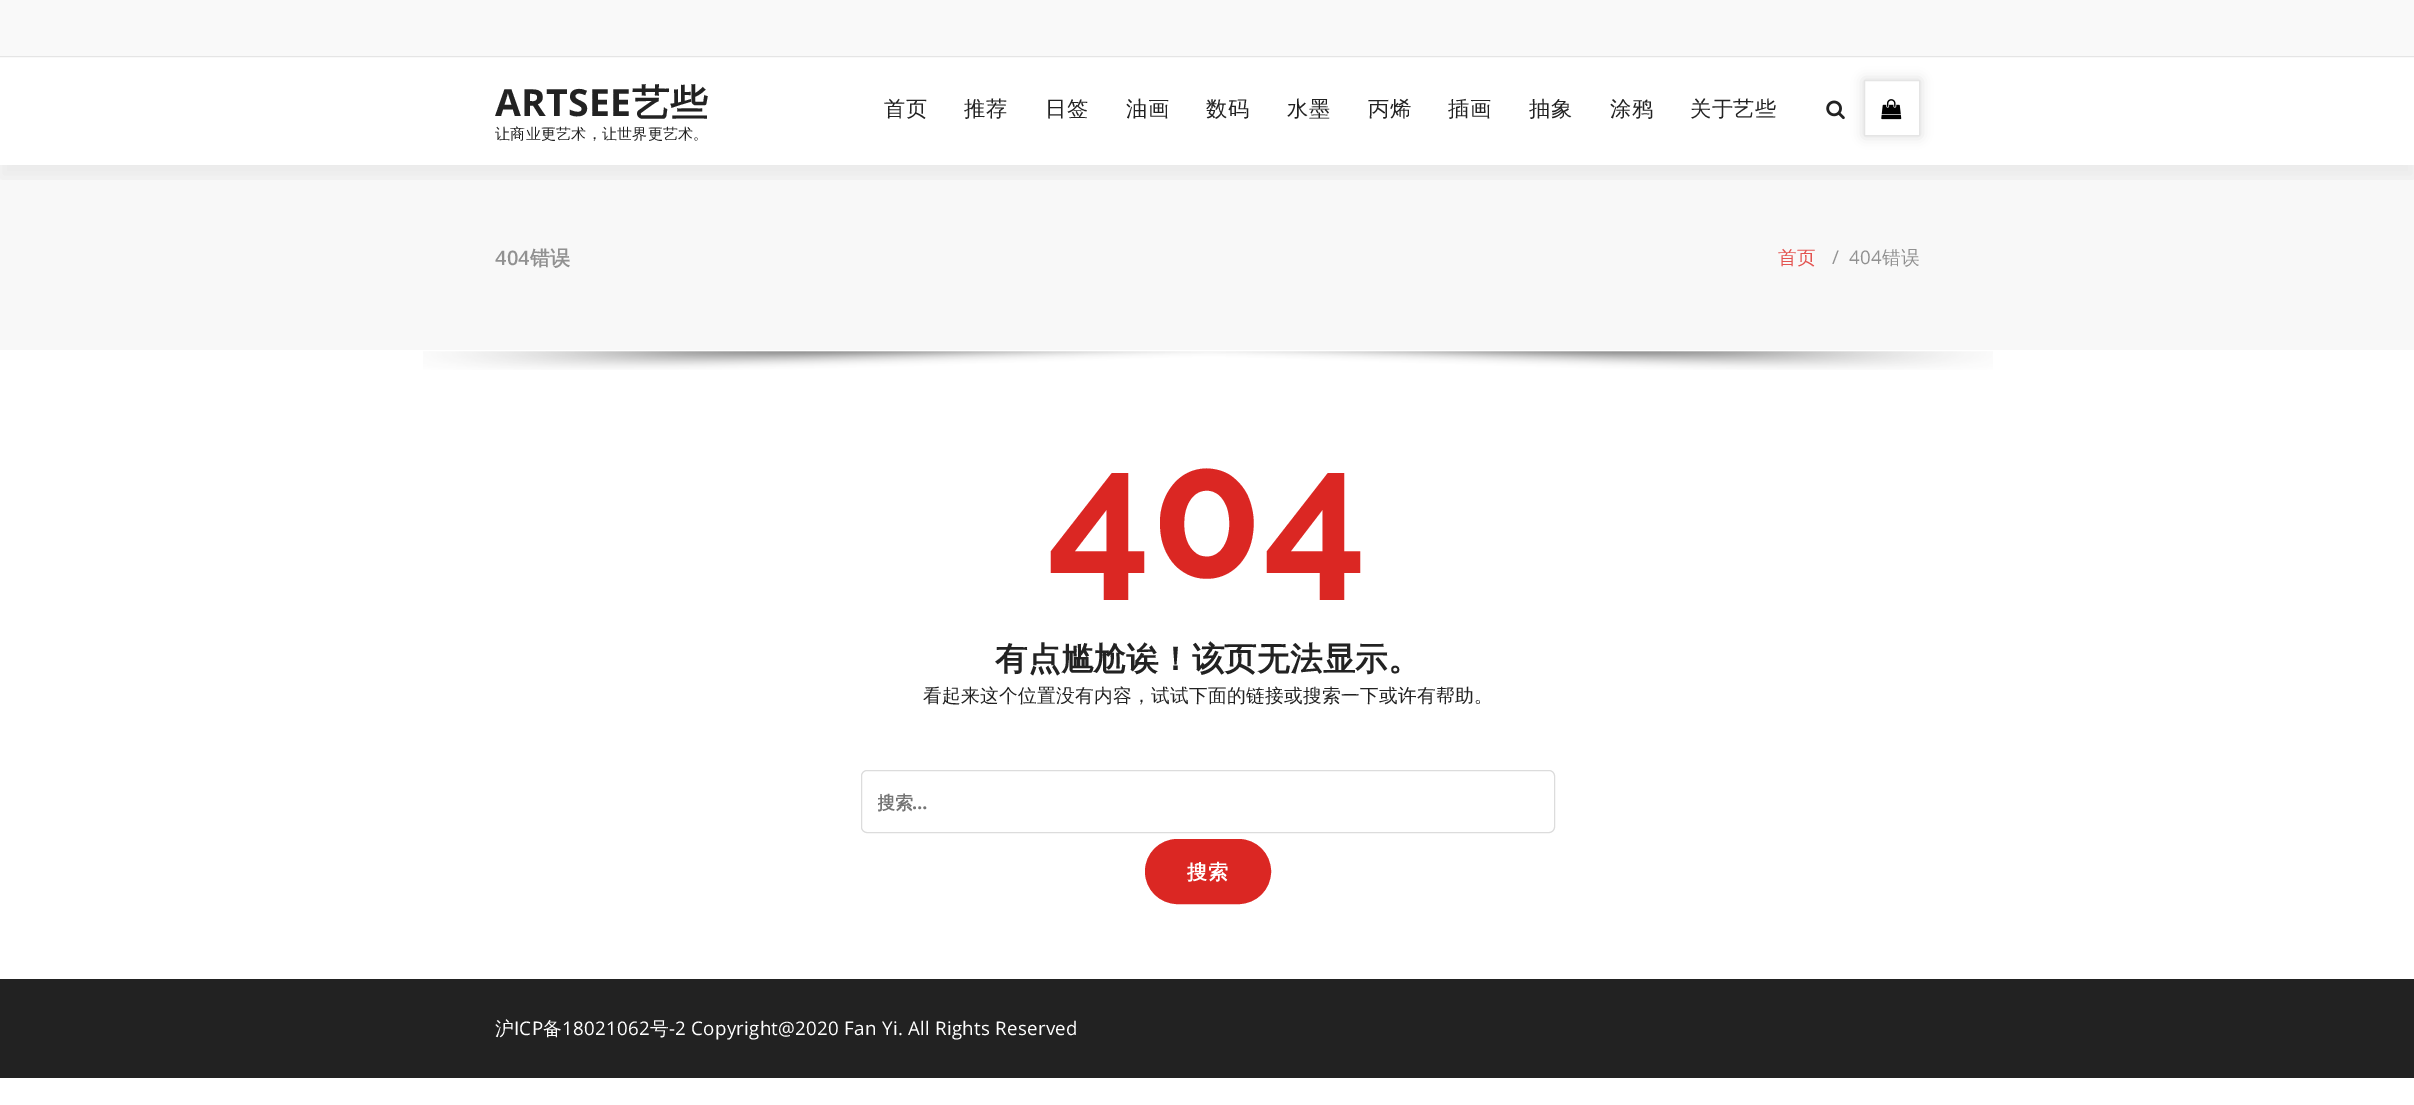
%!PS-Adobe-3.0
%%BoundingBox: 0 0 2414 1105
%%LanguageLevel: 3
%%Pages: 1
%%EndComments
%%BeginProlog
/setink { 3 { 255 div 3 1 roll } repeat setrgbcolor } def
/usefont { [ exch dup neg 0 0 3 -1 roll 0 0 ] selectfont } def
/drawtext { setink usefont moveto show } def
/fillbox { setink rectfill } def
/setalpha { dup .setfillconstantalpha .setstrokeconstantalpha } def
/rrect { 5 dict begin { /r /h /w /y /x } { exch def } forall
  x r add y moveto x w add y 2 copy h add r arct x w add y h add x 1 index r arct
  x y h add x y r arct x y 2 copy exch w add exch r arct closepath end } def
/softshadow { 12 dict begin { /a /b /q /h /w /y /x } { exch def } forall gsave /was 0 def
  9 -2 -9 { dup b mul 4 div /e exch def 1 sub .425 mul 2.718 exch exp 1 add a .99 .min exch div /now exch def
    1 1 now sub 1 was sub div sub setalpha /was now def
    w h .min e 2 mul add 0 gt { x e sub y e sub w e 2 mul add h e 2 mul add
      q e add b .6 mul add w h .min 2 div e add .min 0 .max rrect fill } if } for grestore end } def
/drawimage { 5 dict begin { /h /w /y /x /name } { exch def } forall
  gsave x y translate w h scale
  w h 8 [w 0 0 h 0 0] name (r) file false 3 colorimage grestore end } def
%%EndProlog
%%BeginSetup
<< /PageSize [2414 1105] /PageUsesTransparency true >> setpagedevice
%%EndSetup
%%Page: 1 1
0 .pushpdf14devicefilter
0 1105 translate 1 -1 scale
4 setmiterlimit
0 0 2414 1105 255 255 255 fillbox
0 165 2414 185 248 248 248 fillbox
gsave
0 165 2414 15 rectclip
0 0 0 setink
0 70 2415 108 0 9.5 0.05 softshadow
grestore
0 0 2414 58 249 249 249 fillbox
0 56 2414 1 229 229 229 fillbox
/OpenSans-Bold 37.5 usefont
34 34 34 setink
495 116 moveto 0.25 0 (ARTSEE) ashow
/WenQuanYiZenHei-Bold 37.5 usefont
632 116 moveto 0.25 0 (艺些) ashow
/WenQuanYiZenHei-Medium 15 usefont
495 139 moveto 0.25 0 (让商业更艺术，让世界更艺术。) ashow
/WenQuanYiZenHei-Medium 21.25 usefont
884 116 moveto 0.25 0 (首页) ashow
964 116 moveto 0.25 0 (推荐) ashow
1045 116 moveto 0.25 0 (日签) ashow
1126 116 moveto 0.25 0 (油画) ashow
1206 116 moveto 0.25 0 (数码) ashow
1287 116 moveto 0.25 0 (水墨) ashow
1368 116 moveto 0.25 0 (丙烯) ashow
1448 116 moveto 0.25 0 (插画) ashow
1529 116 moveto 0.25 0 (抽象) ashow
1610 116 moveto 0.25 0 (涂鸦) ashow
1690 116 moveto 0.25 0 (关于艺些) ashow
(assets/img1.rgb) 1826 100 19 20 drawimage
gsave
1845 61 moveto 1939 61 lineto 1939 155 lineto 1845 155 lineto closepath 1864 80 moveto 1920 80 lineto 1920 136 lineto 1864 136 lineto closepath eoclip newpath
0 0 0 setink
1864 80 56 56 0 6 0.15 softshadow
grestore
229 229 229 setink
1864.5 80.5 55 55 rectstroke
(assets/img2.rgb) 1881 99 21 21 drawimage
/OpenSans-SemiBold 20 usefont
145 145 145 setink
495 265 moveto 0.25 0 (404) ashow
/WenQuanYiZenHei-Bold 20 usefont
530 265 moveto 0.25 0 (错误) ashow
/WenQuanYiZenHei-Medium 18.75 usefont
227 84 81 setink
1778 264 moveto 0.25 0 (首页) ashow
/OpenSans-Regular 18.75 usefont
145 145 145 setink
1832 264 moveto 0.25 0 (/) ashow
1849 264 moveto 0.25 0 (404) ashow
/WenQuanYiZenHei-Medium 18.75 usefont
1882 264 moveto 0.25 0 (错误) ashow
(assets/img3.rgb) 423 351 1570 19 drawimage
/Raleway-Bold 182 usefont
219 39 35 setink
1047 577 moveto 0.25 0 (404) ashow
/WenQuanYiZenHei-Bold 32.5 usefont
34 34 34 setink
995 670 moveto 0.25 0 (有点尴尬诶！该页无法显示。) ashow
/WenQuanYiZenHei-Medium 18.75 usefont
923 702 moveto 0.25 0 (看起来这个位置没有内容，试试下面的链接或搜索一下或许有帮助。) ashow
220 220 220 setink
861.5 770.5 693 62 5.5 rrect stroke
gsave
878 790 656 25 rectclip
(搜索) 877 809 /WenQuanYiZenHei-Bold 18 117 117 117 drawtext
grestore
(…) 912 809 /OpenSans-Bold 18 117 117 117 drawtext
219 39 35 setink
1146.5 840.5 123 62 31 rrect gsave fill grestore
3 setlinewidth
stroke
/WenQuanYiZenHei-Bold 20 usefont
255 255 255 setink
1187 879 moveto 1 0 (搜索) ashow
0 979 2414 99 34 34 34 fillbox
/WenQuanYiZenHei-Medium 18.75 usefont
255 255 255 setink
495 1035 moveto 0.25 0 (沪) ashow
/OpenSans-Regular 18.75 usefont
514 1035 moveto 0.25 0 (ICP) ashow
/WenQuanYiZenHei-Medium 18.75 usefont
543 1035 moveto 0.25 0 (备) ashow
/OpenSans-Regular 18.75 usefont
562 1035 moveto 0.25 0 (18021062) ashow
/WenQuanYiZenHei-Medium 18.75 usefont
650 1035 moveto 0.25 0 (号) ashow
/OpenSans-Regular 18.75 usefont
669 1035 moveto 0.25 0 (-2 Copyright@2020 Fan Yi. All Rights Reserved) ashow
.poppdf14devicefilter showpage
%%EOF
